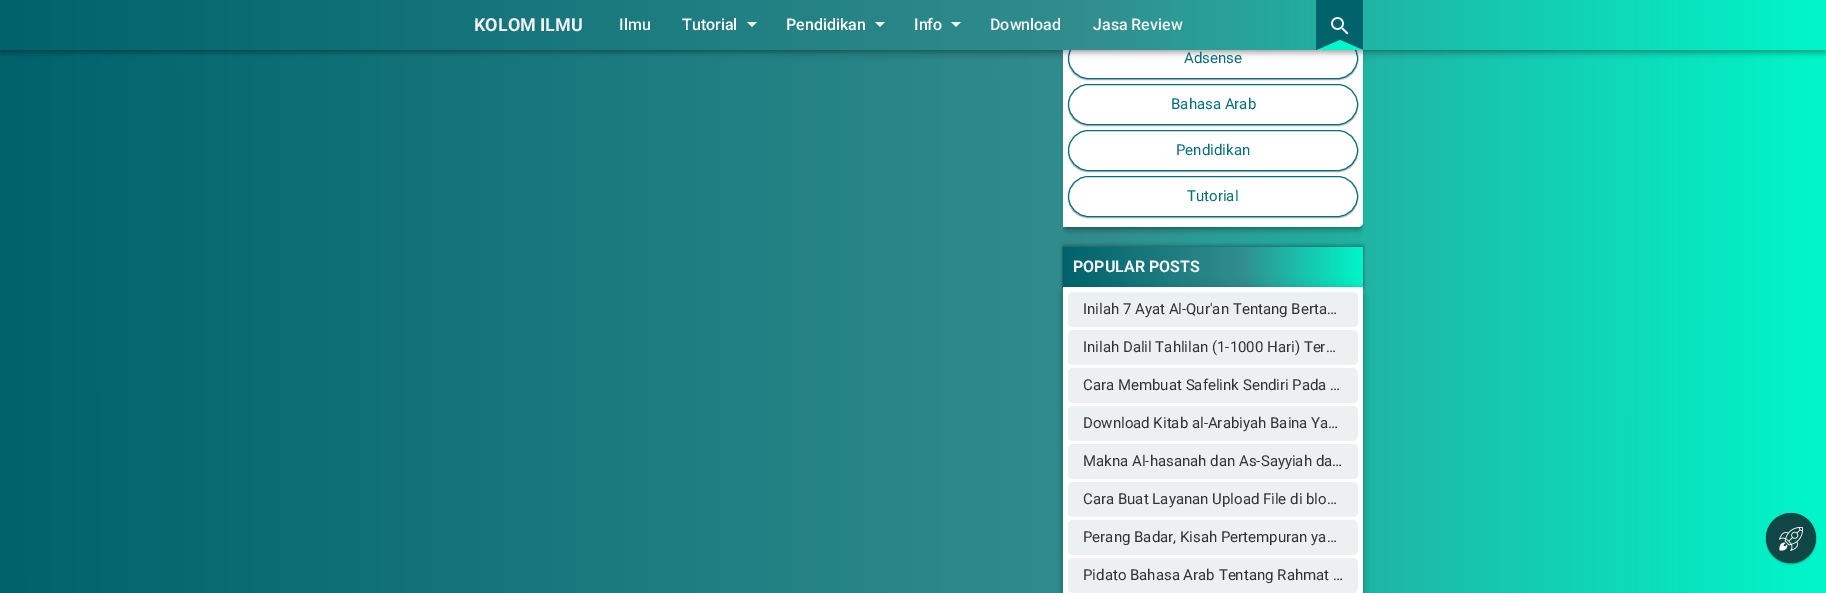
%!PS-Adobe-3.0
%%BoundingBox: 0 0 1826 593
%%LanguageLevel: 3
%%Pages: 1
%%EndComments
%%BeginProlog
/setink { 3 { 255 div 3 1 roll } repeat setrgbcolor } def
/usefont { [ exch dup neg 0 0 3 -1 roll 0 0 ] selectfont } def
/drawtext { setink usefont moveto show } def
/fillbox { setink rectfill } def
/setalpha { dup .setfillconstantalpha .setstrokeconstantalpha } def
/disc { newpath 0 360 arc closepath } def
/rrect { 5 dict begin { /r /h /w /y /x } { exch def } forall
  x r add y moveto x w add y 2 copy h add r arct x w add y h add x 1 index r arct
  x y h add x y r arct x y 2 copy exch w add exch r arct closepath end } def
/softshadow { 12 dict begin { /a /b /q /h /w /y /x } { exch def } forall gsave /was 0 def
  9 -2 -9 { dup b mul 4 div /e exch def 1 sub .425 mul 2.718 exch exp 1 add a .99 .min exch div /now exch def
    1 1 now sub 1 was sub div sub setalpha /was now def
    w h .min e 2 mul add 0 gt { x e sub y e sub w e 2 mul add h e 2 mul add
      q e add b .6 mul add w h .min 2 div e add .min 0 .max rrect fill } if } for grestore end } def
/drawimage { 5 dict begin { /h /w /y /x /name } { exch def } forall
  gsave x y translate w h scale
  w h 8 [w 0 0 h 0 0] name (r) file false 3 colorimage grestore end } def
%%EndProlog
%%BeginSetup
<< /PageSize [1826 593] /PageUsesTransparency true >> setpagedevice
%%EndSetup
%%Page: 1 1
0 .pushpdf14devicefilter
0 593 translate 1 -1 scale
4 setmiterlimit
0 0 1826 593 255 255 255 fillbox
gsave 0 50 moveto 1826 50 lineto 1826 593 lineto 0 593 lineto closepath clip newpath
<< /ShadingType 2 /ColorSpace /DeviceRGB /Coords [0 245 1826 244] /Extend [true true] /Function << /FunctionType 3 /Domain [0 1] /Functions [<< /FunctionType 2 /Domain [0 1] /C0 [0 0.384 0.42] /C1 [0.192 0.557 0.557] /N 1 >> << /FunctionType 2 /Domain [0 1] /C0 [0.192 0.557 0.557] /C1 [0 0.969 0.792] /N 1 >>] /Bounds [0.6] /Encode [0 1 0 1] >> >> shfill grestore
gsave
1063 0 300 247 rectclip
0 0 0 setink
1063 -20 300 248 5 5 0.12 softshadow
1063 -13 300 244 5 2.5 0.14 softshadow
grestore
gsave
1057 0 moveto 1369 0 lineto 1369 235 lineto 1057 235 lineto closepath 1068 -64 moveto 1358 -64 lineto 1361 -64 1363 -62 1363 -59 curveto 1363 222 lineto 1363 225 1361 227 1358 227 curveto 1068 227 lineto 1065 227 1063 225 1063 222 curveto 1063 -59 lineto 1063 -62 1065 -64 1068 -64 curveto closepath eoclip newpath
0 0 0 setink
1064 -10 298 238 4 2 0.2 softshadow
grestore
1063 -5 moveto 1363 -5 lineto 1363 222 lineto 1363 225 1361 227 1358 227 curveto 1063 227 lineto closepath fill
0 0 0 setink
1068 39 290 41 20.5 0.5 0.3 softshadow
255 255 255 setink
1068.5 38.5 289 40 20 rrect gsave fill grestore
7 111 123 setink
stroke
0 0 0 setink
0 1 1826 50 0 5 0.12 softshadow
0 4 1826 50 0 2.5 0.14 softshadow
1 3 1824 48 0 2 0.2 softshadow
gsave 0 0 moveto 1826 0 lineto 1826 50 lineto 0 50 lineto closepath clip newpath
<< /ShadingType 2 /ColorSpace /DeviceRGB /Coords [0 25 1826 25] /Extend [true true] /Function << /FunctionType 3 /Domain [0 1] /Functions [<< /FunctionType 2 /Domain [0 1] /C0 [0 0.384 0.42] /C1 [0.192 0.557 0.557] /N 1 >> << /FunctionType 2 /Domain [0 1] /C0 [0.192 0.557 0.557] /C1 [0 0.969 0.792] /N 1 >>] /Bounds [0.6] /Encode [0 1 0 1] >> >> shfill grestore
(KOLOM ILMU) 474 31 /Roboto-Bold 18 242 242 242 drawtext
(Ilmu) 619 30 /Roboto-Medium 16 242 242 242 drawtext
(Tutorial) 682 30 /Roboto-Medium 16 255 255 255 drawtext
242 242 242 setink
747 22 moveto 752 27 lineto 757 22 lineto closepath fill
(Pendidikan) 786 30 /Roboto-Medium 16 255 255 255 drawtext
242 242 242 setink
875 22 moveto 880 27 lineto 885 22 lineto closepath fill
(Info) 914 30 /Roboto-Medium 16 255 255 255 drawtext
242 242 242 setink
951 22 moveto 956 27 lineto 961 22 lineto closepath fill
(Download) 990 30 /Roboto-Medium 16 242 242 242 drawtext
(Jasa Review) 1093 30 /Roboto-Medium 16 242 242 242 drawtext
1316 0 47 50 0 98 107 fillbox
(assets/img1.rgb) 1331 17 18 18 drawimage
0 247 202 setink
1363 50 moveto 1317 50 lineto 1340 40 lineto closepath fill
(Adsense) 1184 63 /Roboto-Regular 15 7 111 123 drawtext
0 0 0 setink
1068 85 290 41 20.5 0.5 0.3 softshadow
255 255 255 setink
1068.5 84.5 289 40 20 rrect gsave fill grestore
7 111 123 setink
stroke
(Bahasa Arab) 1171 109 /Roboto-Regular 15 7 111 123 drawtext
0 0 0 setink
1068 131 290 41 20.5 0.5 0.3 softshadow
255 255 255 setink
1068.5 130.5 289 40 20 rrect gsave fill grestore
7 111 123 setink
stroke
(Pendidikan) 1176 155 /Roboto-Regular 15 7 111 123 drawtext
0 0 0 setink
1068 177 290 41 20.5 0.5 0.3 softshadow
255 255 255 setink
1068.5 176.5 289 40 20 rrect gsave fill grestore
7 111 123 setink
stroke
(Tutorial) 1187 201 /Roboto-Regular 15 7 111 123 drawtext
12 12 12 setink
1063 245 300 40 0 2 0.3 softshadow
1063 248 300 40 0 1 0.59 softshadow
gsave 1063 247 moveto 1363 247 lineto 1363 287 lineto 1063 287 lineto closepath clip newpath
<< /ShadingType 2 /ColorSpace /DeviceRGB /Coords [1063 267 1363 267] /Extend [true true] /Function << /FunctionType 3 /Domain [0 1] /Functions [<< /FunctionType 2 /Domain [0 1] /C0 [0 0.384 0.42] /C1 [0.192 0.557 0.557] /N 1 >> << /FunctionType 2 /Domain [0 1] /C0 [0.192 0.557 0.557] /C1 [0 0.969 0.792] /N 1 >>] /Bounds [0.6] /Encode [0 1 0 1] >> >> shfill grestore
0 0 0 setink
1063 288 300 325 5 5 0.12 softshadow
(POPULAR POSTS) 1073 272 /Roboto-Bold 16 242 242 242 drawtext
0 0 0 setink
1063 291 300 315 5 2.5 0.14 softshadow
1064 290 298 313 4 2 0.2 softshadow
1063 287 300 306 255 255 255 fillbox
236 240 241 setink
1068 292 290 35 5 rrect fill
(Inilah 7 Ayat Al-Qur'an Tentang Berta…) 1083 314 /Roboto-Regular 15 51 51 51 drawtext
236 240 241 setink
1068 330 290 35 5 rrect fill
(Inilah Dalil Tahlilan \(1-1000 Hari\) Ter…) 1083 352 /Roboto-Regular 15 51 51 51 drawtext
236 240 241 setink
1068 368 290 35 5 rrect fill
(Cara Membuat Safelink Sendiri Pada …) 1083 390 /Roboto-Regular 15 51 51 51 drawtext
236 240 241 setink
1068 406 290 35 5 rrect fill
(Download Kitab al-Arabiyah Baina Ya…) 1083 428 /Roboto-Regular 15 51 51 51 drawtext
236 240 241 setink
1068 444 290 35 5 rrect fill
(Makna Al-hasanah dan As-Sayyiah da…) 1083 466 /Roboto-Regular 15 51 51 51 drawtext
236 240 241 setink
1068 482 290 35 5 rrect fill
(Cara Buat Layanan Upload File di blo…) 1083 504 /Roboto-Regular 15 51 51 51 drawtext
236 240 241 setink
1068 520 290 35 5 rrect fill
(Perang Badar, Kisah Pertempuran ya…) 1083 542 /Roboto-Regular 15 51 51 51 drawtext
236 240 241 setink
1068 558 290 35 5 rrect fill
(Pidato Bahasa Arab Tentang Rahmat …) 1083 580 /Roboto-Regular 15 51 51 51 drawtext
0 0 0 setink
1766 514 50 50 25 0.5 0.24 softshadow
1766 514 50 50 25 1 0.12 softshadow
16 70 70 setink
1791 538 25 disc fill
(assets/img2.rgb) 1779 527 24 24 drawimage
.poppdf14devicefilter showpage
%%EOF
